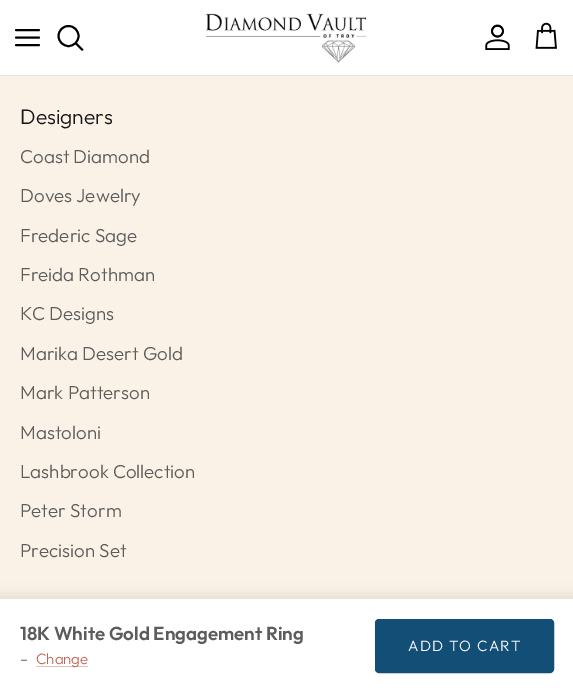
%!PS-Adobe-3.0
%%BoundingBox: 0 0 573 692
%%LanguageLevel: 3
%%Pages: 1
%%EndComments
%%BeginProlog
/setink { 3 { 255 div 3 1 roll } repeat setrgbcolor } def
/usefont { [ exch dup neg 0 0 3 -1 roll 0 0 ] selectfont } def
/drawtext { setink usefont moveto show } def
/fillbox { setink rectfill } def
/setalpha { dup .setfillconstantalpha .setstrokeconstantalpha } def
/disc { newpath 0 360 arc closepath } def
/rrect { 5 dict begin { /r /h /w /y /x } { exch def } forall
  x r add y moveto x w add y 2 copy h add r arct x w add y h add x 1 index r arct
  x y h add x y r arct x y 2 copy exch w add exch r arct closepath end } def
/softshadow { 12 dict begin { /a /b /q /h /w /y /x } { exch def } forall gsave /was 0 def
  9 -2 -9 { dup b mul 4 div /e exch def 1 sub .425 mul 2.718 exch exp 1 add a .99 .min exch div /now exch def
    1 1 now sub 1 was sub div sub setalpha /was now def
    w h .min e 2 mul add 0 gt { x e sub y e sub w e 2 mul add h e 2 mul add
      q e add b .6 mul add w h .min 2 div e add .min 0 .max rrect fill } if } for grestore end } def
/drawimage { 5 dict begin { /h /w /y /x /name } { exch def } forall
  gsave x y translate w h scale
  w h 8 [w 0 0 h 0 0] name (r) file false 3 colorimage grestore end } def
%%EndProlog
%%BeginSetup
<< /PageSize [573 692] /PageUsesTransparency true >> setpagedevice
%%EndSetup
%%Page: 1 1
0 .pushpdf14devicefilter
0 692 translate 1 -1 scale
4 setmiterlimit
0 0 573 692 250 242 230 fillbox
0 0 573 75 255 255 255 fillbox
0 75 573 1 223 227 232 fillbox
0 0 0 setink
1.9 setlinewidth
1 setlinecap
1 setlinejoin
16 37.5 moveto 39 37.5 lineto 16 30 moveto 39 30 lineto 16 45 moveto 39 45 lineto stroke
0 setlinecap
0 setlinejoin
68.5 36 10 disc stroke
2 setlinecap
76 43.5 moveto 82 49.5 lineto stroke
(assets/img1.rgb) 205 13 162 50 drawimage
(assets/img2.rgb) 485 24 25 26 drawimage
(assets/img3.rgb) 535 22 22 27 drawimage
(Designers) 20 124 /Outfit-Light 21 23 23 23 drawtext
(Coast Diamond) 20 163 /Outfit-Light 18.75 92 92 92 drawtext
(Doves Jewelry) 20 202 /Outfit-Light 18.75 92 92 92 drawtext
(Frederic Sage) 20 242 /Outfit-Light 18.75 92 92 92 drawtext
(Freida Rothman) 20 281 /Outfit-Light 18.75 92 92 92 drawtext
(KC Designs) 20 320 /Outfit-Light 18.75 92 92 92 drawtext
(Marika Desert Gold) 20 360 /Outfit-Light 18.75 92 92 92 drawtext
(Mark Patterson) 20 399 /Outfit-Light 18.75 92 92 92 drawtext
(Mastoloni) 20 439 /Outfit-Light 18.75 92 92 92 drawtext
(Lashbrook Collection) 20 478 /Outfit-Light 18.75 92 92 92 drawtext
(Peter Storm) 20 517 /Outfit-Light 18.75 92 92 92 drawtext
(Precision Set) 20 557 /Outfit-Light 18.75 92 92 92 drawtext
0 0 0 setink
-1 598 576 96 0 7.5 0.12 softshadow
0 599 573 93 255 255 255 fillbox
(18K White Gold Engagement Ring) 20 640 /Outfit-SemiBold 18.75 92 92 92 drawtext
(–) 20 664 /Outfit-Light 15 92 92 92 drawtext
36 666 52 1 230 193 186 fillbox
(Change) 36 664 /Outfit-Light 15 193 100 82 drawtext
19 78 118 setink
375.5 619.5 178 53 3.5 rrect gsave fill grestore
1 setlinewidth
0 setlinecap
stroke
255 255 255 setink
408 651 moveto 1.25 0 (ADD TO CART) ashow
.poppdf14devicefilter showpage
%%EOF
